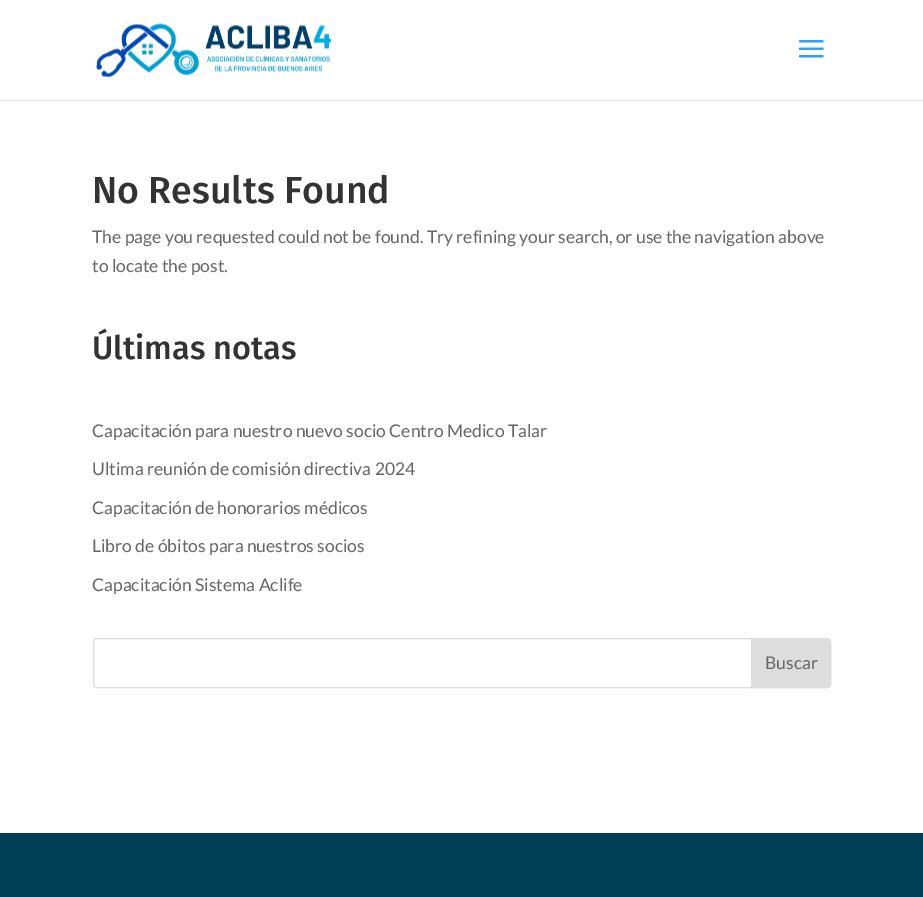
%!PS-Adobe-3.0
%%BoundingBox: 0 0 923 897
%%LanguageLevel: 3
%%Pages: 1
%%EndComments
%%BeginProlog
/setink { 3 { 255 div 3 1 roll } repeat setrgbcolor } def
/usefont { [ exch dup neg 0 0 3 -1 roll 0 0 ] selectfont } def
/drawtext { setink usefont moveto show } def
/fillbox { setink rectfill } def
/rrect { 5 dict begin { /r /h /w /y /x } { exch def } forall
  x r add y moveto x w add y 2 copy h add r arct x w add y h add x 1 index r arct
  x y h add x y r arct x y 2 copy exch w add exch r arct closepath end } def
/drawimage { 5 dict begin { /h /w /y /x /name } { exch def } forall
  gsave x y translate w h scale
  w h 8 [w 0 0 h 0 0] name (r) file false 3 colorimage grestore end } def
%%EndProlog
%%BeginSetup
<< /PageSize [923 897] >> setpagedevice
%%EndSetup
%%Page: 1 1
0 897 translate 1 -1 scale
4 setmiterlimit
0 0 923 897 255 255 255 fillbox
230 230 230 setink
0 100 moveto 0 101 lineto 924 101 lineto 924 1 lineto 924 100 lineto closepath fill
(assets/img1.rgb) 96 23 236 55 drawimage
(assets/img2.rgb) 798 40 26 18 drawimage
(No Results Found) 92 203 /FiraSans-Medium 37.5 51 51 51 drawtext
(The page you requested could not be found. Try refining your search, or use the navigation above) 92 243 /Lato-Regular 17.5 102 102 102 drawtext
(to locate the post.) 92 272 /Lato-Regular 17.5 102 102 102 drawtext
(Últimas notas) 92 359 /FiraSans-Medium 32.5 51 51 51 drawtext
(Capacitación para nuestro nuevo socio Centro Medico Talar) 92 437 /Lato-Regular 17.5 102 102 102 drawtext
(Ultima reunión de comisión directiva 2024) 92 475 /Lato-Regular 17.5 102 102 102 drawtext
(Capacitación de honorarios médicos) 92 514 /Lato-Regular 17.5 102 102 102 drawtext
(Libro de óbitos para nuestros socios) 92 552 /Lato-Regular 17.5 102 102 102 drawtext
(Capacitación Sistema Aclife) 92 591 /Lato-Regular 17.5 102 102 102 drawtext
221 221 221 setink
93.5 638.5 737 49 3.5 rrect stroke
751.5 638.5 moveto 827 638.5 lineto 829 638.5 830.5 640 830.5 642 curveto 830.5 684 lineto 830.5 686 829 687.5 827 687.5 curveto 751.5 687.5 lineto closepath gsave fill grestore
stroke
(Buscar) 765 669 /Lato-Regular 17.5 102 102 102 drawtext
0 833 923 64 0 63 84 fillbox
showpage
%%EOF
